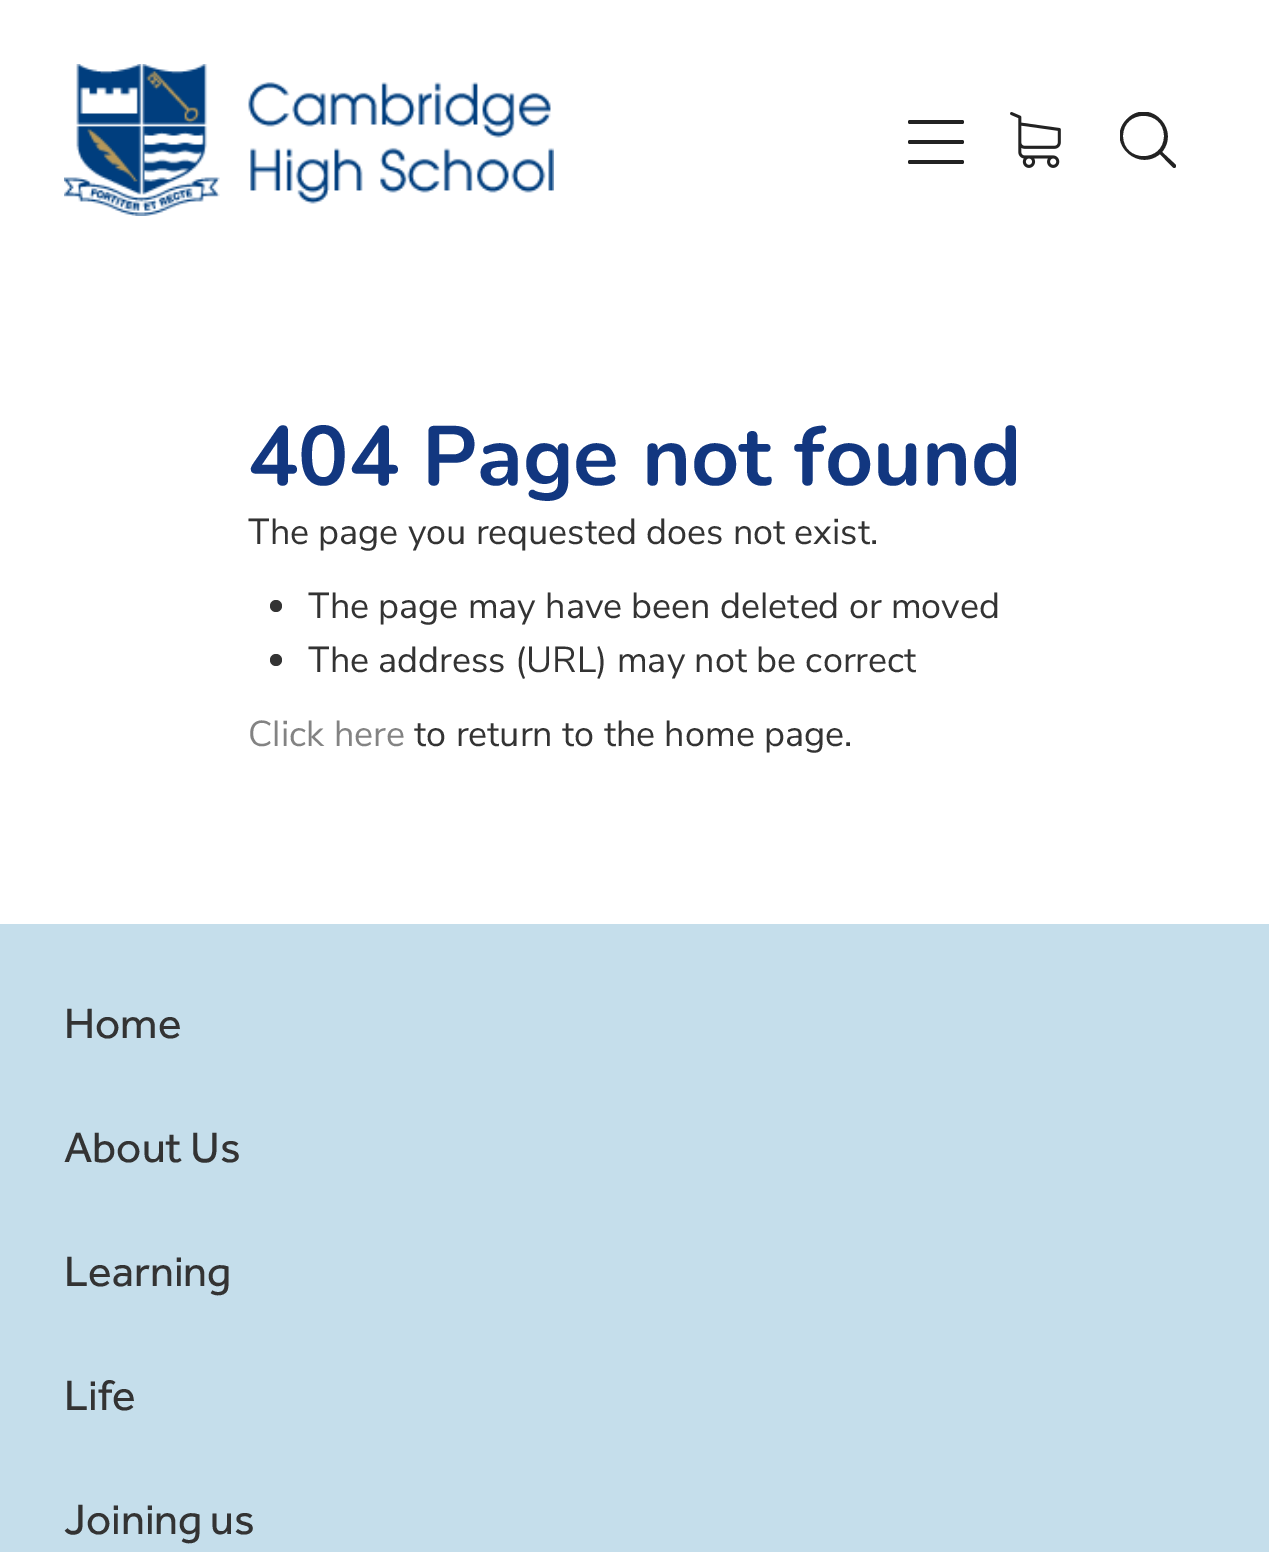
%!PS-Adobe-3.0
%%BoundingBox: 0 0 1269 1552
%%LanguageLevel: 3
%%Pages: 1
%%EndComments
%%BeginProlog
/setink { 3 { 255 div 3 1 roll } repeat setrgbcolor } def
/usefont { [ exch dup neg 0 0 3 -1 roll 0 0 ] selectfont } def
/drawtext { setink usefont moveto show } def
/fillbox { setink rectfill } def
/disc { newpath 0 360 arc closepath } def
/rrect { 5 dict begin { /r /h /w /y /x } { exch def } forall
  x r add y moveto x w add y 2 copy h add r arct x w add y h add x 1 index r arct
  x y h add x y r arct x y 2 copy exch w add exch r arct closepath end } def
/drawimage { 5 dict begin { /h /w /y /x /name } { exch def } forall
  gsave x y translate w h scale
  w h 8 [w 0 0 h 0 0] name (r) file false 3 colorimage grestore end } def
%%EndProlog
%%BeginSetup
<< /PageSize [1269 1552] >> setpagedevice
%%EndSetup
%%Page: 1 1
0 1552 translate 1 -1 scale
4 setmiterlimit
0 0 1269 1552 255 255 255 fillbox
(assets/img1.rgb) 64 64 490 152 drawimage
34 34 34 setink
908 140 56 4 2 rrect fill
908 120 56 4 2 rrect fill
908 160 56 4 2 rrect fill
(assets/img2.rgb) 1010 112 51 56 drawimage
gsave
1120 112 56 56 rectclip
1176 165 moveto 1162 152 lineto 1181 129 1149 97 1127 119 curveto 1105 141 1137 173 1160 154 curveto 1162 156 1173 168 1174 168 curveto 1176 168 1176 166 1176 165 curveto closepath 1123 136 moveto 1123 109 1164 109 1164 136 curveto 1164 163 1123 163 1123 136 curveto closepath fill
grestore
(404 Page not found) 248 485 /Nunito-Bold 84 18 55 128 drawtext
(The page you requested does not exist.) 248 544 /NunitoSans-Regular 36 51 51 51 drawtext
276 606 6 disc fill
(The page may have been deleted or moved) 308 618 /NunitoSans-Regular 36 51 51 51 drawtext
276 660 6 disc fill
(The address \(URL\) may not be correct) 308 672 /NunitoSans-Regular 36 51 51 51 drawtext
(Click here) 248 746 /NunitoSans-Regular 36 131 131 131 drawtext
(to return to the home page.) 414 746 /NunitoSans-Regular 36 51 51 51 drawtext
0 924 1269 628 197 222 235 fillbox
(Home) 64 1038 /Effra-Regular 44 51 51 51 drawtext
(About Us) 64 1162 /Effra-Regular 44 51 51 51 drawtext
(Learning) 64 1286 /Effra-Regular 44 51 51 51 drawtext
(Life) 64 1410 /Effra-Regular 44 51 51 51 drawtext
(Joining us) 64 1534 /Effra-Regular 44 51 51 51 drawtext
showpage
%%EOF
